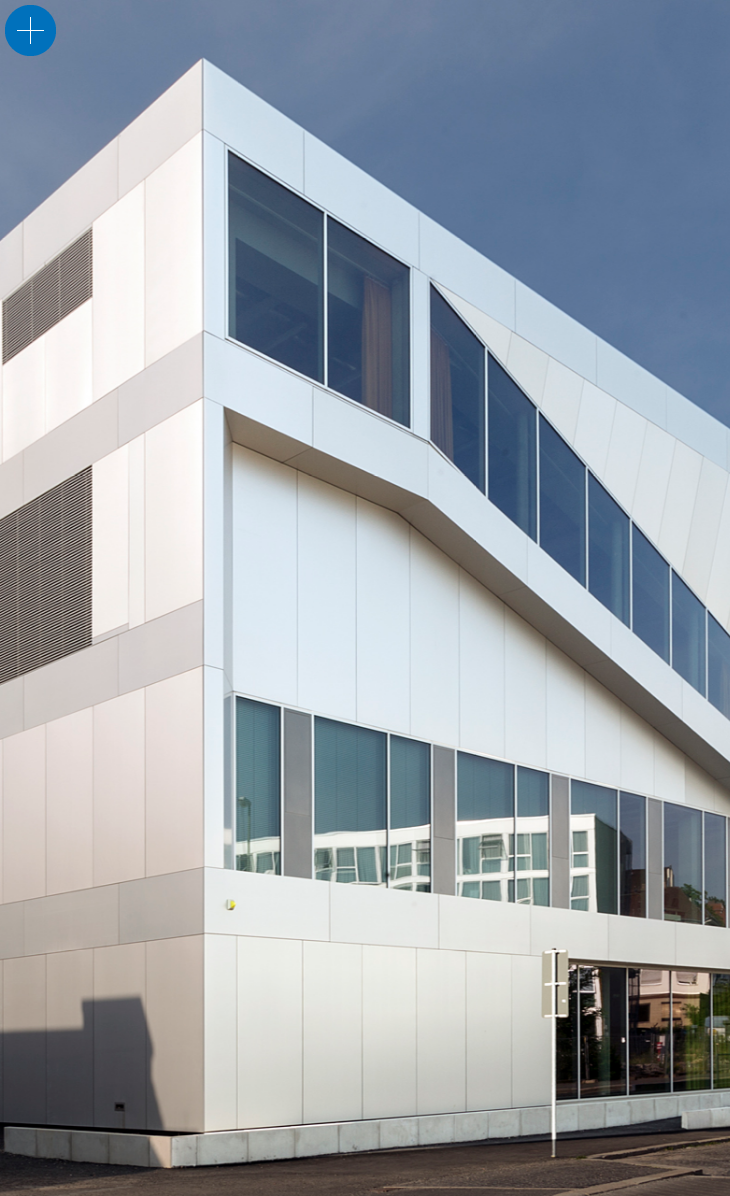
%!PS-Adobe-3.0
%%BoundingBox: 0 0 730 1196
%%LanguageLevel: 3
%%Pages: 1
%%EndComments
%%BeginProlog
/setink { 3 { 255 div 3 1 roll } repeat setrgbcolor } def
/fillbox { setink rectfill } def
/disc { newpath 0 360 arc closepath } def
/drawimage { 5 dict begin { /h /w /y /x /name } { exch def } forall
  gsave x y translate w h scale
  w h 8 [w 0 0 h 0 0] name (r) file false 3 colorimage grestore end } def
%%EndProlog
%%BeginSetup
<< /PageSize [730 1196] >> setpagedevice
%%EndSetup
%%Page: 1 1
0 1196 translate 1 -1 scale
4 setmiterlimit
0 0 730 1196 255 255 255 fillbox
(assets/img1.rgb) 0 0 730 1196 drawimage
0 113 188 setink
30.5 30.5 25.5 disc fill
30 17 1 27 255 255 255 fillbox
17 30 27 1 255 255 255 fillbox
showpage
%%EOF
